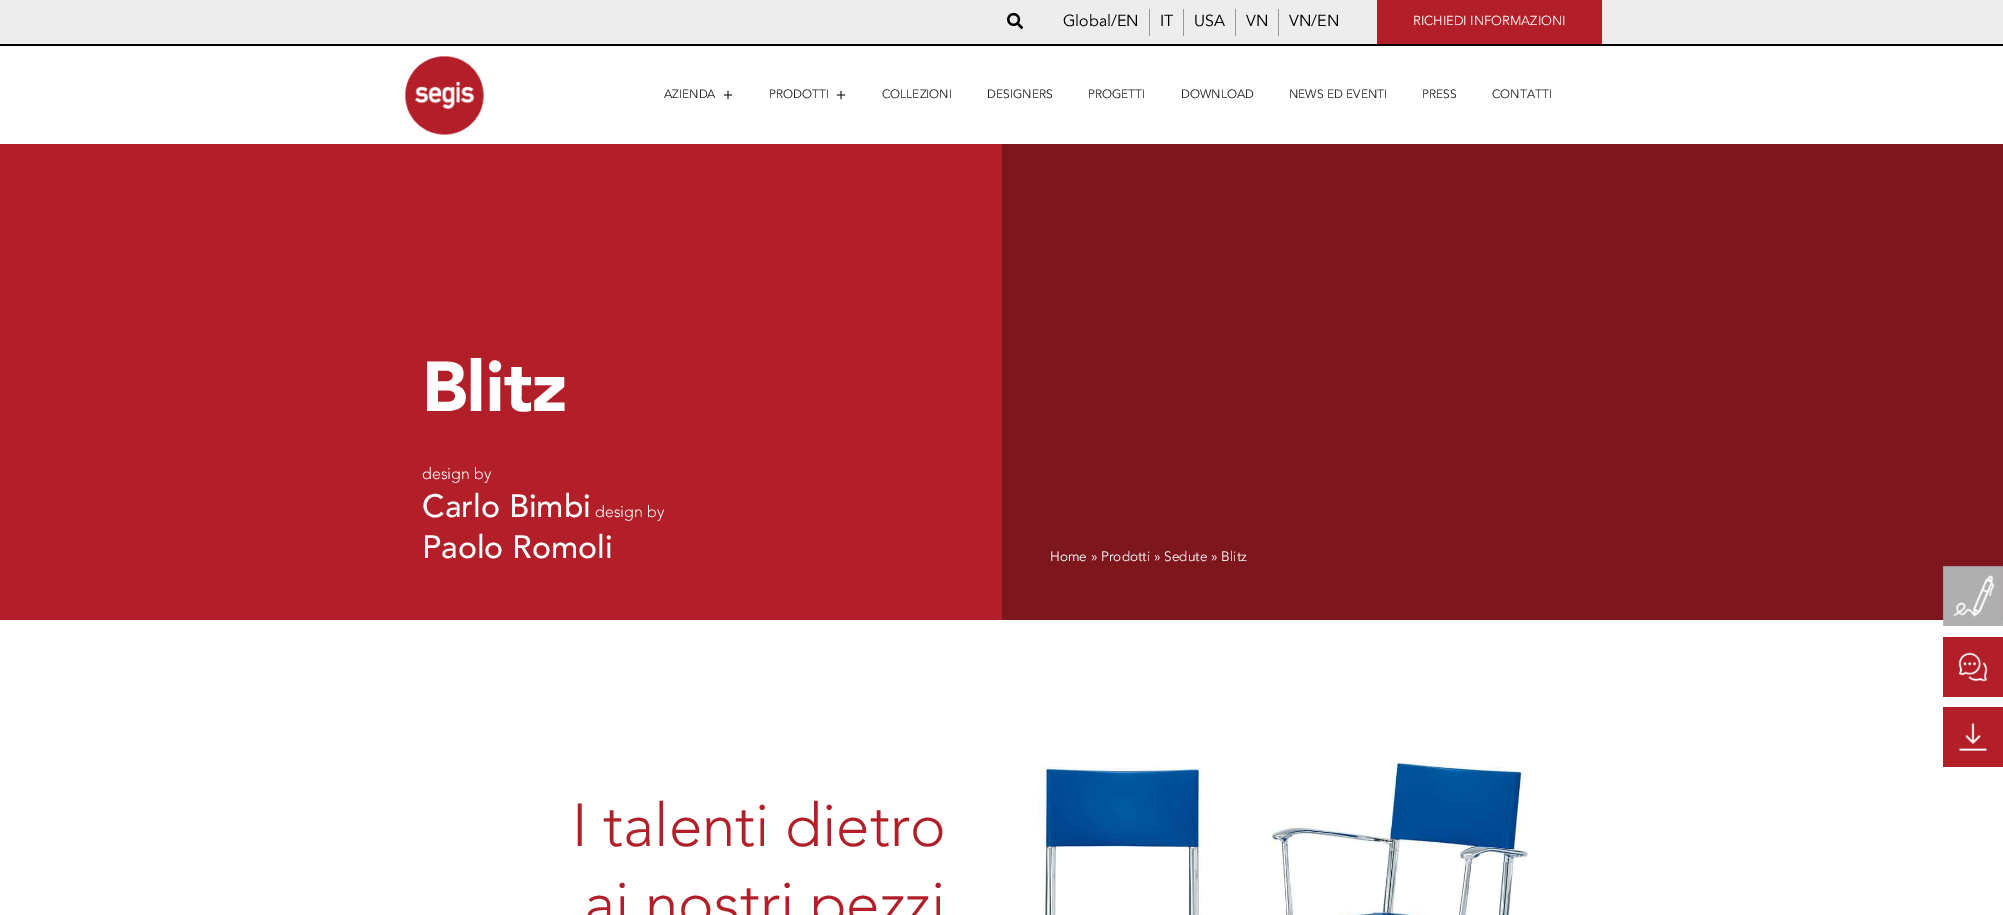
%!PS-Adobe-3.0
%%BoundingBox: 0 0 2003 915
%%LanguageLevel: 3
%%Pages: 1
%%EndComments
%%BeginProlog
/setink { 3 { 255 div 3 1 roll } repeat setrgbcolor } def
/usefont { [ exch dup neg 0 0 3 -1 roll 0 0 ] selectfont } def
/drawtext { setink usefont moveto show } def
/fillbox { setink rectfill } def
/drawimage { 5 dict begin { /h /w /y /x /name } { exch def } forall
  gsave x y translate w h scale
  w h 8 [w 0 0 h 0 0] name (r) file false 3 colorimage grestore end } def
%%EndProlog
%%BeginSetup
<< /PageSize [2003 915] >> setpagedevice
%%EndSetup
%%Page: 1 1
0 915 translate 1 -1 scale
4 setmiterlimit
0 0 2003 915 255 255 255 fillbox
0 0 2003 44 237 237 237 fillbox
0 44 2003 2 0 0 0 fillbox
(assets/img1.rgb) 1007 12 16 17 drawimage
1149 9 1 27 153 153 153 fillbox
(Global/EN) 1063 26 /Avenir-Regular 16 0 0 0 drawtext
1183 9 1 27 153 153 153 fillbox
(IT) 1160 26 /Avenir-Regular 16 0 0 0 drawtext
1235 9 1 27 153 153 153 fillbox
(USA) 1194 26 /Avenir-Regular 16 0 0 0 drawtext
1278 9 1 27 153 153 153 fillbox
(VN) 1246 26 /Avenir-Regular 16 0 0 0 drawtext
(VN/EN) 1289 26 /Avenir-Regular 16 0 0 0 drawtext
1377 0 225 44 179 31 41 fillbox
(RICHIEDI INFORMAZIONI) 1413 25 /Avenir-Regular 13 255 255 255 drawtext
(assets/img2.rgb) 405 56 79 79 drawimage
(AZIENDA) 664 98 /Avenir-Regular 12 34 34 34 drawtext
(assets/img3.rgb) 723 90 10 10 drawimage
(PRODOTTI) 769 98 /Avenir-Regular 12 34 34 34 drawtext
(assets/img3.rgb) 836 90 10 10 drawimage
(COLLEZIONI) 882 98 /Avenir-Regular 12 34 34 34 drawtext
(DESIGNERS) 987 98 /Avenir-Regular 12 34 34 34 drawtext
(PROGETTI) 1088 98 /Avenir-Regular 12 34 34 34 drawtext
(DOWNLOAD) 1181 98 /Avenir-Regular 12 34 34 34 drawtext
(NEWS ED EVENTI) 1289 98 /Avenir-Regular 12 34 34 34 drawtext
(PRESS) 1422 98 /Avenir-Regular 12 34 34 34 drawtext
(CONTATTI) 1492 98 /Avenir-Regular 12 34 34 34 drawtext
1943 637 60 60 179 31 41 fillbox
(assets/img4.rgb) 1958 652 30 30 drawimage
1943 707 60 60 179 31 41 fillbox
(assets/img5.rgb) 1959 723 28 28 drawimage
0 144 1002 476 179 31 41 fillbox
(Blitz) 422 411 /Avenir-Black 70 255 255 255 drawtext
(design by) 422 479 /Avenir-Light 16 255 255 255 drawtext
(Carlo Bimbi) 422 517 /Avenir-Medium 32 255 255 255 drawtext
(design by) 595 517 /Avenir-Light 16 255 255 255 drawtext
(Paolo Romoli) 422 558 /Avenir-Medium 32 255 255 255 drawtext
1002 144 1001 476 125 22 29 fillbox
(Home » Prodotti » Sedute » Blitz) 1050 561 /Avenir-Regular 13.6 255 255 255 drawtext
(I talenti dietro) 572 846 /Avenir-Light 60 179 31 41 drawtext
(ai nostri pezzi) 584 924 /Avenir-Light 60 179 31 41 drawtext
(assets/img6.rgb) 1038 758 490 157 drawimage
(assets/img7.rgb) 1943 566 60 60 drawimage
showpage
%%EOF
